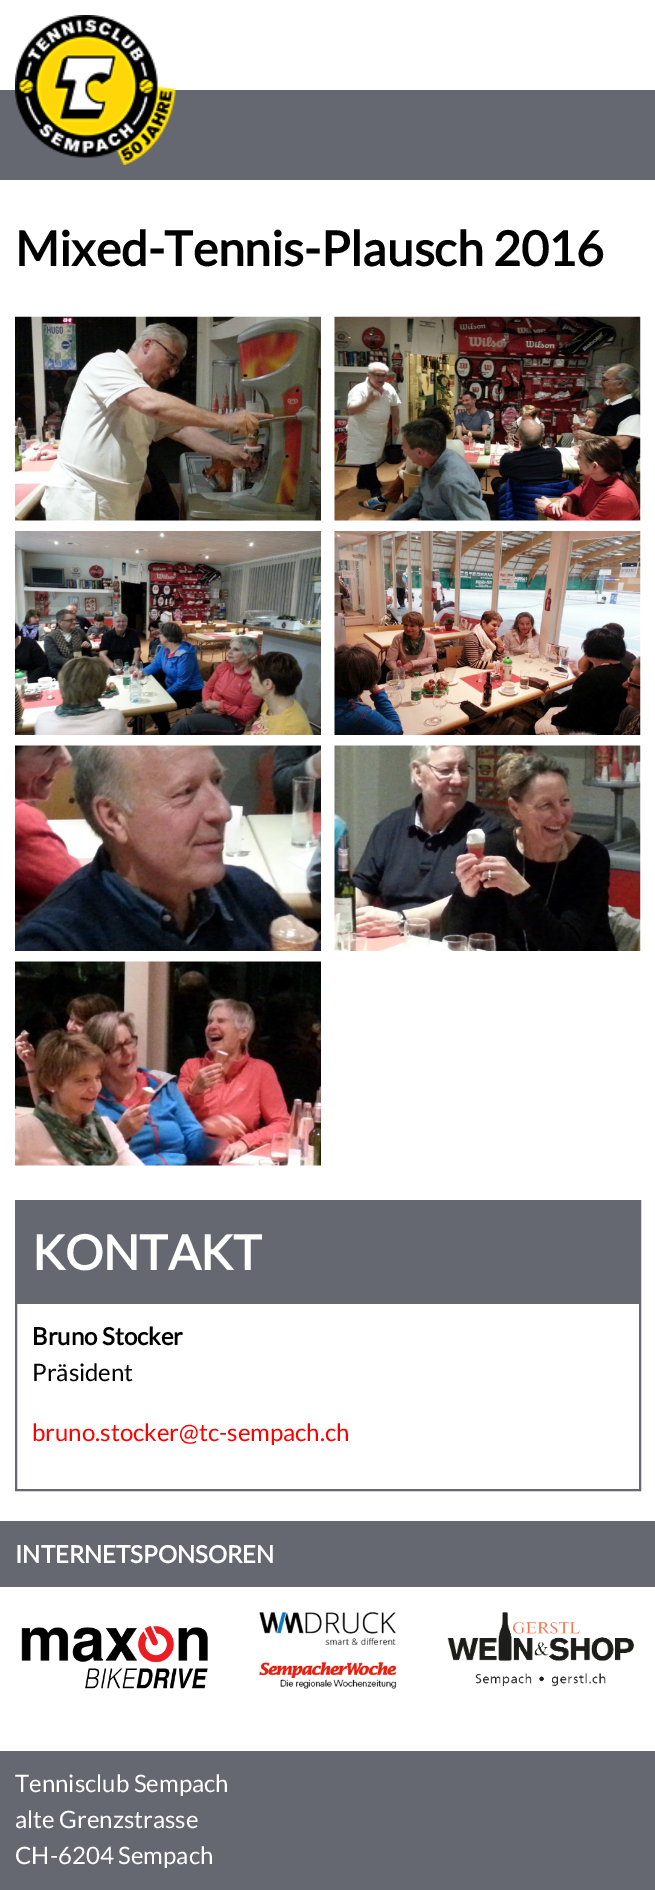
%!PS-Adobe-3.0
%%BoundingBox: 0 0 655 1890
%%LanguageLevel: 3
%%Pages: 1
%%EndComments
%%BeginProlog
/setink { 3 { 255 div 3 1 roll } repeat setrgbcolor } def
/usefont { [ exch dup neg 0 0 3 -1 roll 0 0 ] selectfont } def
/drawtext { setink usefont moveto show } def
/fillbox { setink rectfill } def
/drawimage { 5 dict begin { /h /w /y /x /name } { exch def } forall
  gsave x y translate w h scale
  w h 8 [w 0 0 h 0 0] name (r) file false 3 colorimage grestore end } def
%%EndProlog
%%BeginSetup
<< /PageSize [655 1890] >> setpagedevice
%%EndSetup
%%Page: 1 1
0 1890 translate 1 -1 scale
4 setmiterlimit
0 0 655 1890 255 255 255 fillbox
0 90 655 90 101 104 112 fillbox
(assets/img1.rgb) 15 15 161 150 drawimage
(Mixed-Tennis-Plausch 2016) 15 266 /Lato-Bold 48 0 0 0 drawtext
(assets/img2.rgb) 15 316 306 205 drawimage
(assets/img3.rgb) 334 316 307 205 drawimage
(assets/img4.rgb) 15 531 306 204 drawimage
(assets/img5.rgb) 334 531 307 204 drawimage
(assets/img6.rgb) 15 745 306 206 drawimage
(assets/img7.rgb) 334 745 307 206 drawimage
(assets/img8.rgb) 15 961 306 205 drawimage
101 104 112 setink
2 setlinewidth
16 1201 624 289 rectstroke
17 1202 622 102 101 104 112 fillbox
(KONTAKT) 32 1270 /Lato-Bold 48 255 255 255 drawtext
(Bruno Stocker) 32 1345 /Lato-Bold 24 0 0 0 drawtext
(Präsident) 32 1381 /Lato-Regular 24 0 0 0 drawtext
(bruno.stocker@tc-sempach.ch) 32 1441 /Lato-Regular 24 255 0 0 drawtext
0 1521 655 66 101 104 112 fillbox
(INTERNETSPONSOREN) 15 1563 /Lato-Bold 24 255 255 255 drawtext
(assets/img9.rgb) 21 1625 187 64 drawimage
(assets/img10.rgb) 259 1611 138 78 drawimage
(assets/img11.rgb) 447 1611 187 75 drawimage
0 1751 655 139 101 104 112 fillbox
(Tennisclub Sempach) 15 1792 /Lato-Regular 24 255 255 255 drawtext
(alte Grenzstrasse) 15 1828 /Lato-Regular 24 255 255 255 drawtext
(CH-6204 Sempach) 15 1864 /Lato-Regular 24 255 255 255 drawtext
showpage
%%EOF
